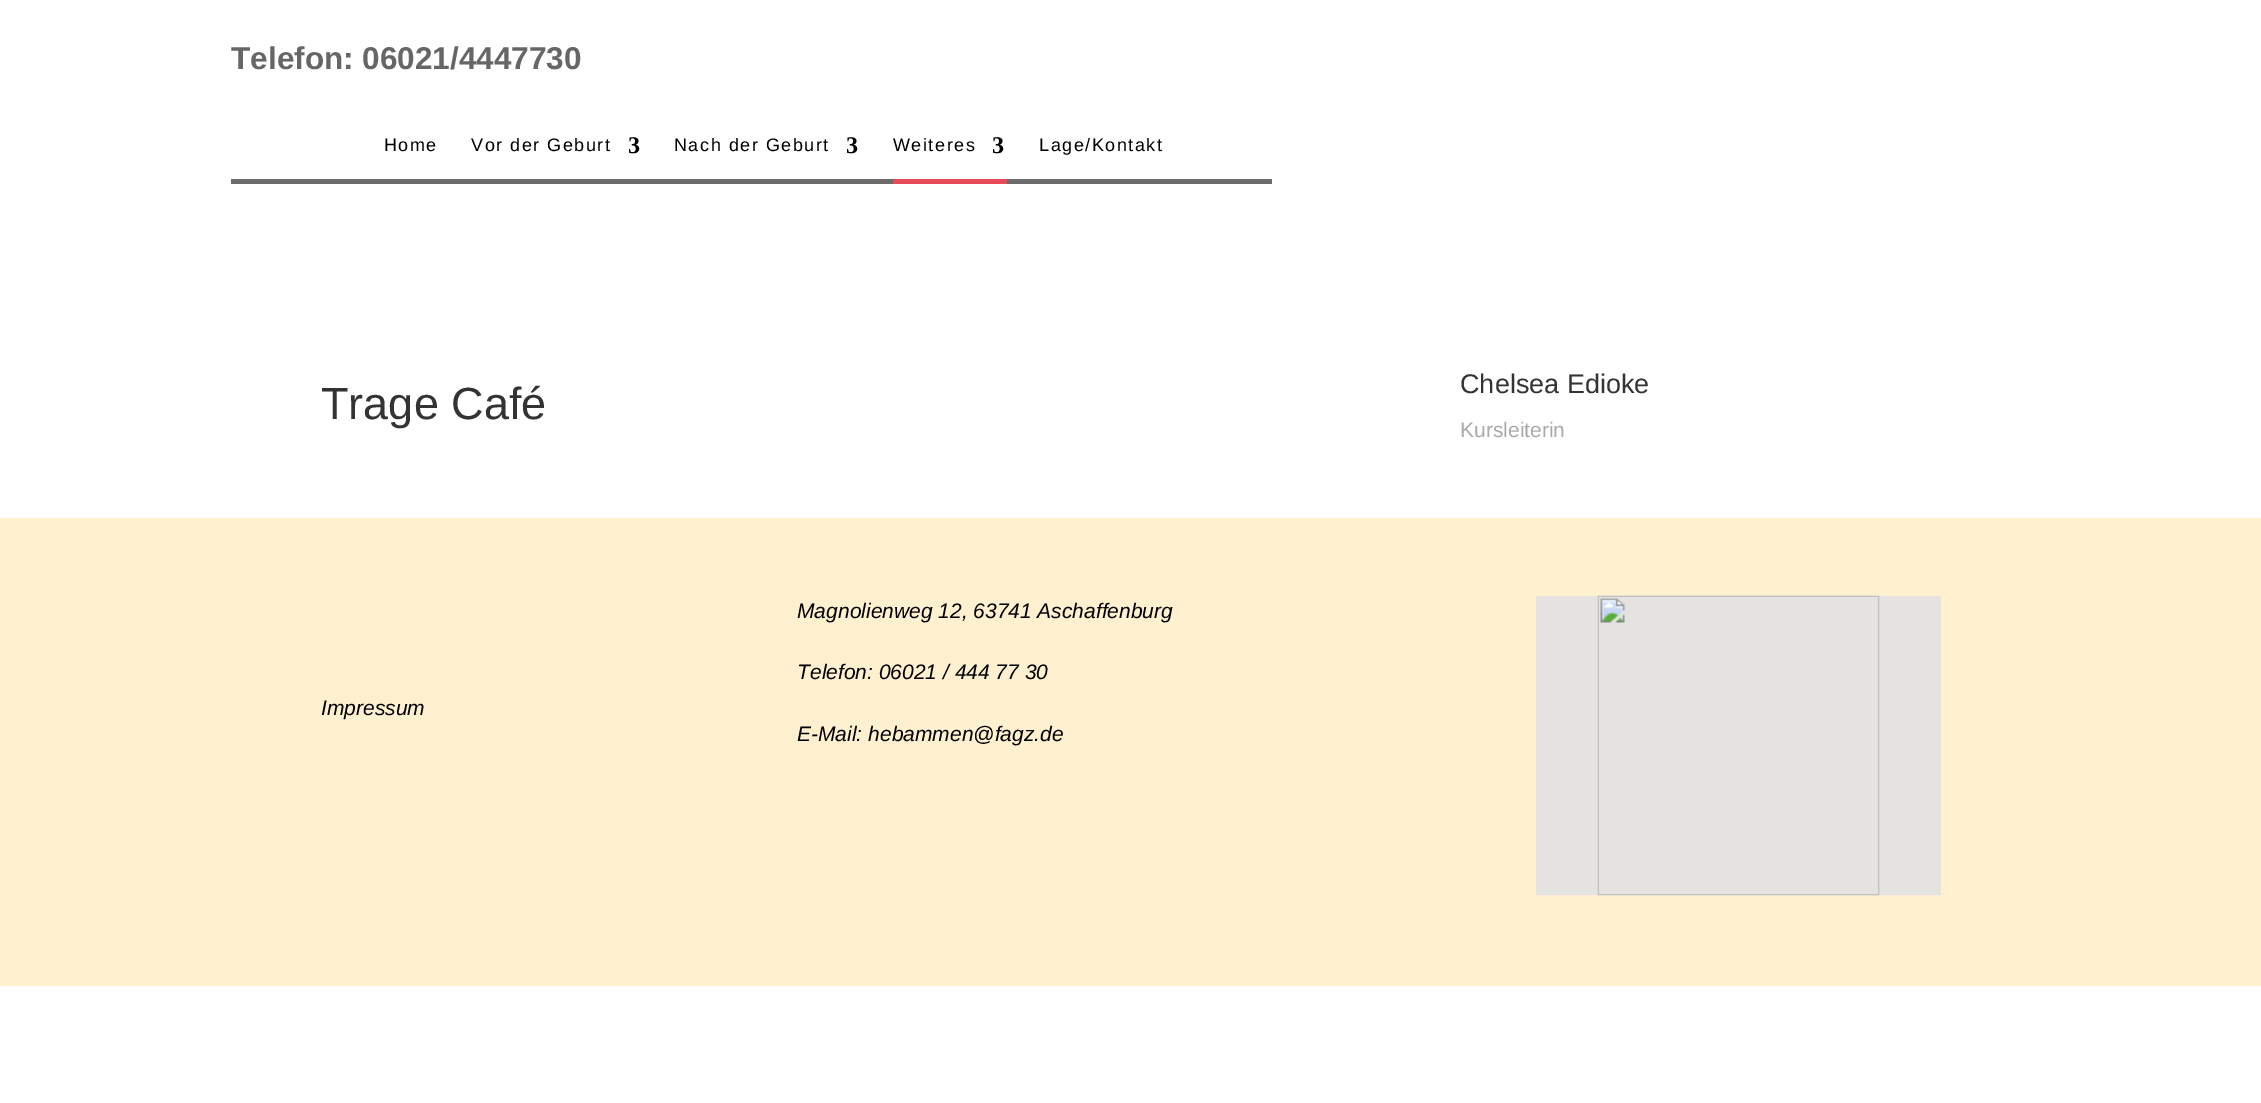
%!PS-Adobe-3.0
%%BoundingBox: 0 0 2261 1103
%%LanguageLevel: 3
%%Pages: 1
%%EndComments
%%BeginProlog
/setink { 3 { 255 div 3 1 roll } repeat setrgbcolor } def
/usefont { [ exch dup neg 0 0 3 -1 roll 0 0 ] selectfont } def
/drawtext { setink usefont moveto show } def
/fillbox { setink rectfill } def
/drawimage { 5 dict begin { /h /w /y /x /name } { exch def } forall
  gsave x y translate w h scale
  w h 8 [w 0 0 h 0 0] name (r) file false 3 colorimage grestore end } def
%%EndProlog
%%BeginSetup
<< /PageSize [2261 1103] >> setpagedevice
%%EndSetup
%%Page: 1 1
0 1103 translate 1 -1 scale
4 setmiterlimit
0 0 2261 1103 255 255 255 fillbox
(Telefon: 06021/4447730) 231 69 /LiberationSans-Bold 31.5 102 102 102 drawtext
231 179 1041 5 107 107 107 fillbox
/LiberationSans-Regular 18 usefont
0 0 0 setink
384 151 moveto 1.5 0 (Home) ashow
471 151 moveto 1.5 0 (Vor der Geburt) ashow
/LiberationSerif-Bold 24 usefont
628 153 moveto 1.5 0 (3) ashow
/LiberationSans-Regular 18 usefont
674 151 moveto 1.5 0 (Nach der Geburt) ashow
/LiberationSerif-Bold 24 usefont
846 153 moveto 1.5 0 (3) ashow
/LiberationSans-Regular 18 usefont
893 151 moveto 1.5 0 (Weiteres) ashow
/LiberationSerif-Bold 24 usefont
992 153 moveto 1.5 0 (3) ashow
893 179 114 5 232 73 86 fillbox
/LiberationSans-Regular 18 usefont
0 0 0 setink
1039 151 moveto 1.5 0 (Lage/Kontakt) ashow
(Trage Café) 321 419 /LiberationSans-Regular 45 51 51 51 drawtext
(Chelsea Edioke) 1460 393 /LiberationSans-Regular 27 51 51 51 drawtext
(Kursleiterin) 1460 437 /LiberationSans-Regular 21 170 170 170 drawtext
0 518 2261 468 255 240 208 fillbox
(Impressum) 321 715 /LiberationSans-Italic 21 0 0 0 drawtext
(Magnolienweg 12, 63741 Aschaffenburg) 797 618 /LiberationSans-Italic 21 0 0 0 drawtext
(Telefon: 06021 / 444 77 30) 797 679 /LiberationSans-Italic 21 0 0 0 drawtext
(E-Mail: hebammen@fagz.de) 797 741 /LiberationSans-Italic 21 0 0 0 drawtext
(assets/img1.rgb) 1536 595 405 301 drawimage
showpage
%%EOF
